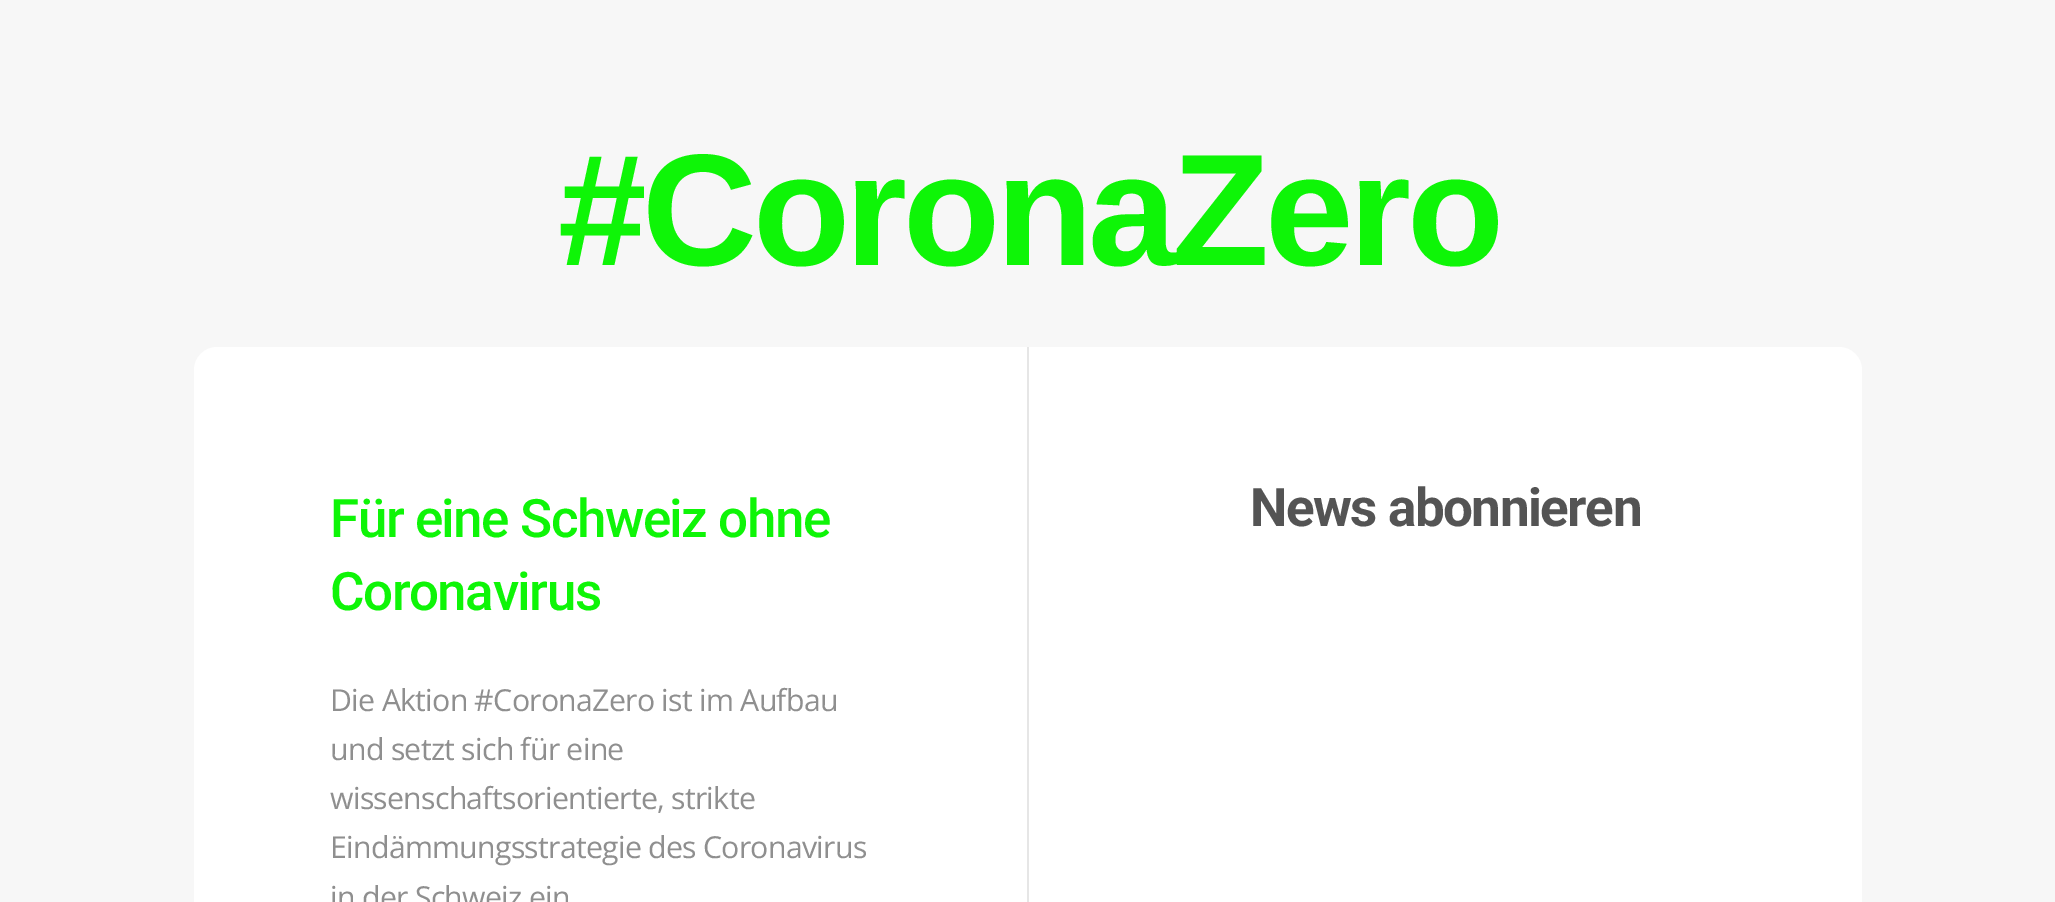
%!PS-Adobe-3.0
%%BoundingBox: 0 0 2055 902
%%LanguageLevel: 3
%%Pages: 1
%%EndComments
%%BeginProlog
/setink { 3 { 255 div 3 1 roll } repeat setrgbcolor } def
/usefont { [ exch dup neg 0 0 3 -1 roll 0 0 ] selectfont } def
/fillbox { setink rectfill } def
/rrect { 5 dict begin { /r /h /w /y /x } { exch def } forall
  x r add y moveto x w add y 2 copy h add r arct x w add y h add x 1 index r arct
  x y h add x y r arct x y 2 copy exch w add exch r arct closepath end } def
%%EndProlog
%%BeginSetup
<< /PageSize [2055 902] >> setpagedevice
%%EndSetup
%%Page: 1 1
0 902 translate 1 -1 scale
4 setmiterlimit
0 0 2055 902 247 247 247 fillbox
/LiberationSans-Bold 159.25 usefont
14 245 7 setink
558 265 moveto -4.5 0 (#CoronaZero) ashow
255 255 255 setink
194 347 1668 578 23 rrect fill
/Roboto-Medium 53 usefont
14 245 7 setink
330 537 moveto -1.5 0 (Für eine Schweiz ohne) ashow
330 610 moveto -1.5 0 (Coronavirus) ashow
/OpenSans-Regular 30.3 usefont
143 143 143 setink
330 711 moveto -0.75 0 (Die Aktion #CoronaZero ist im Aufbau) ashow
330 760 moveto -0.75 0 (und setzt sich für eine) ashow
330 809 moveto -0.75 0 (wissenschaftsorientierte, strikte) ashow
330 858 moveto -0.75 0 (Eindämmungsstrategie des Coronavirus) ashow
330 908 moveto -0.75 0 (in der Schweiz ein) ashow
1027 347 2 555 230 230 230 fillbox
/Roboto-Bold 53 usefont
84 84 84 setink
1250 526 moveto -1.5 0 (News abonnieren) ashow
showpage
%%EOF
